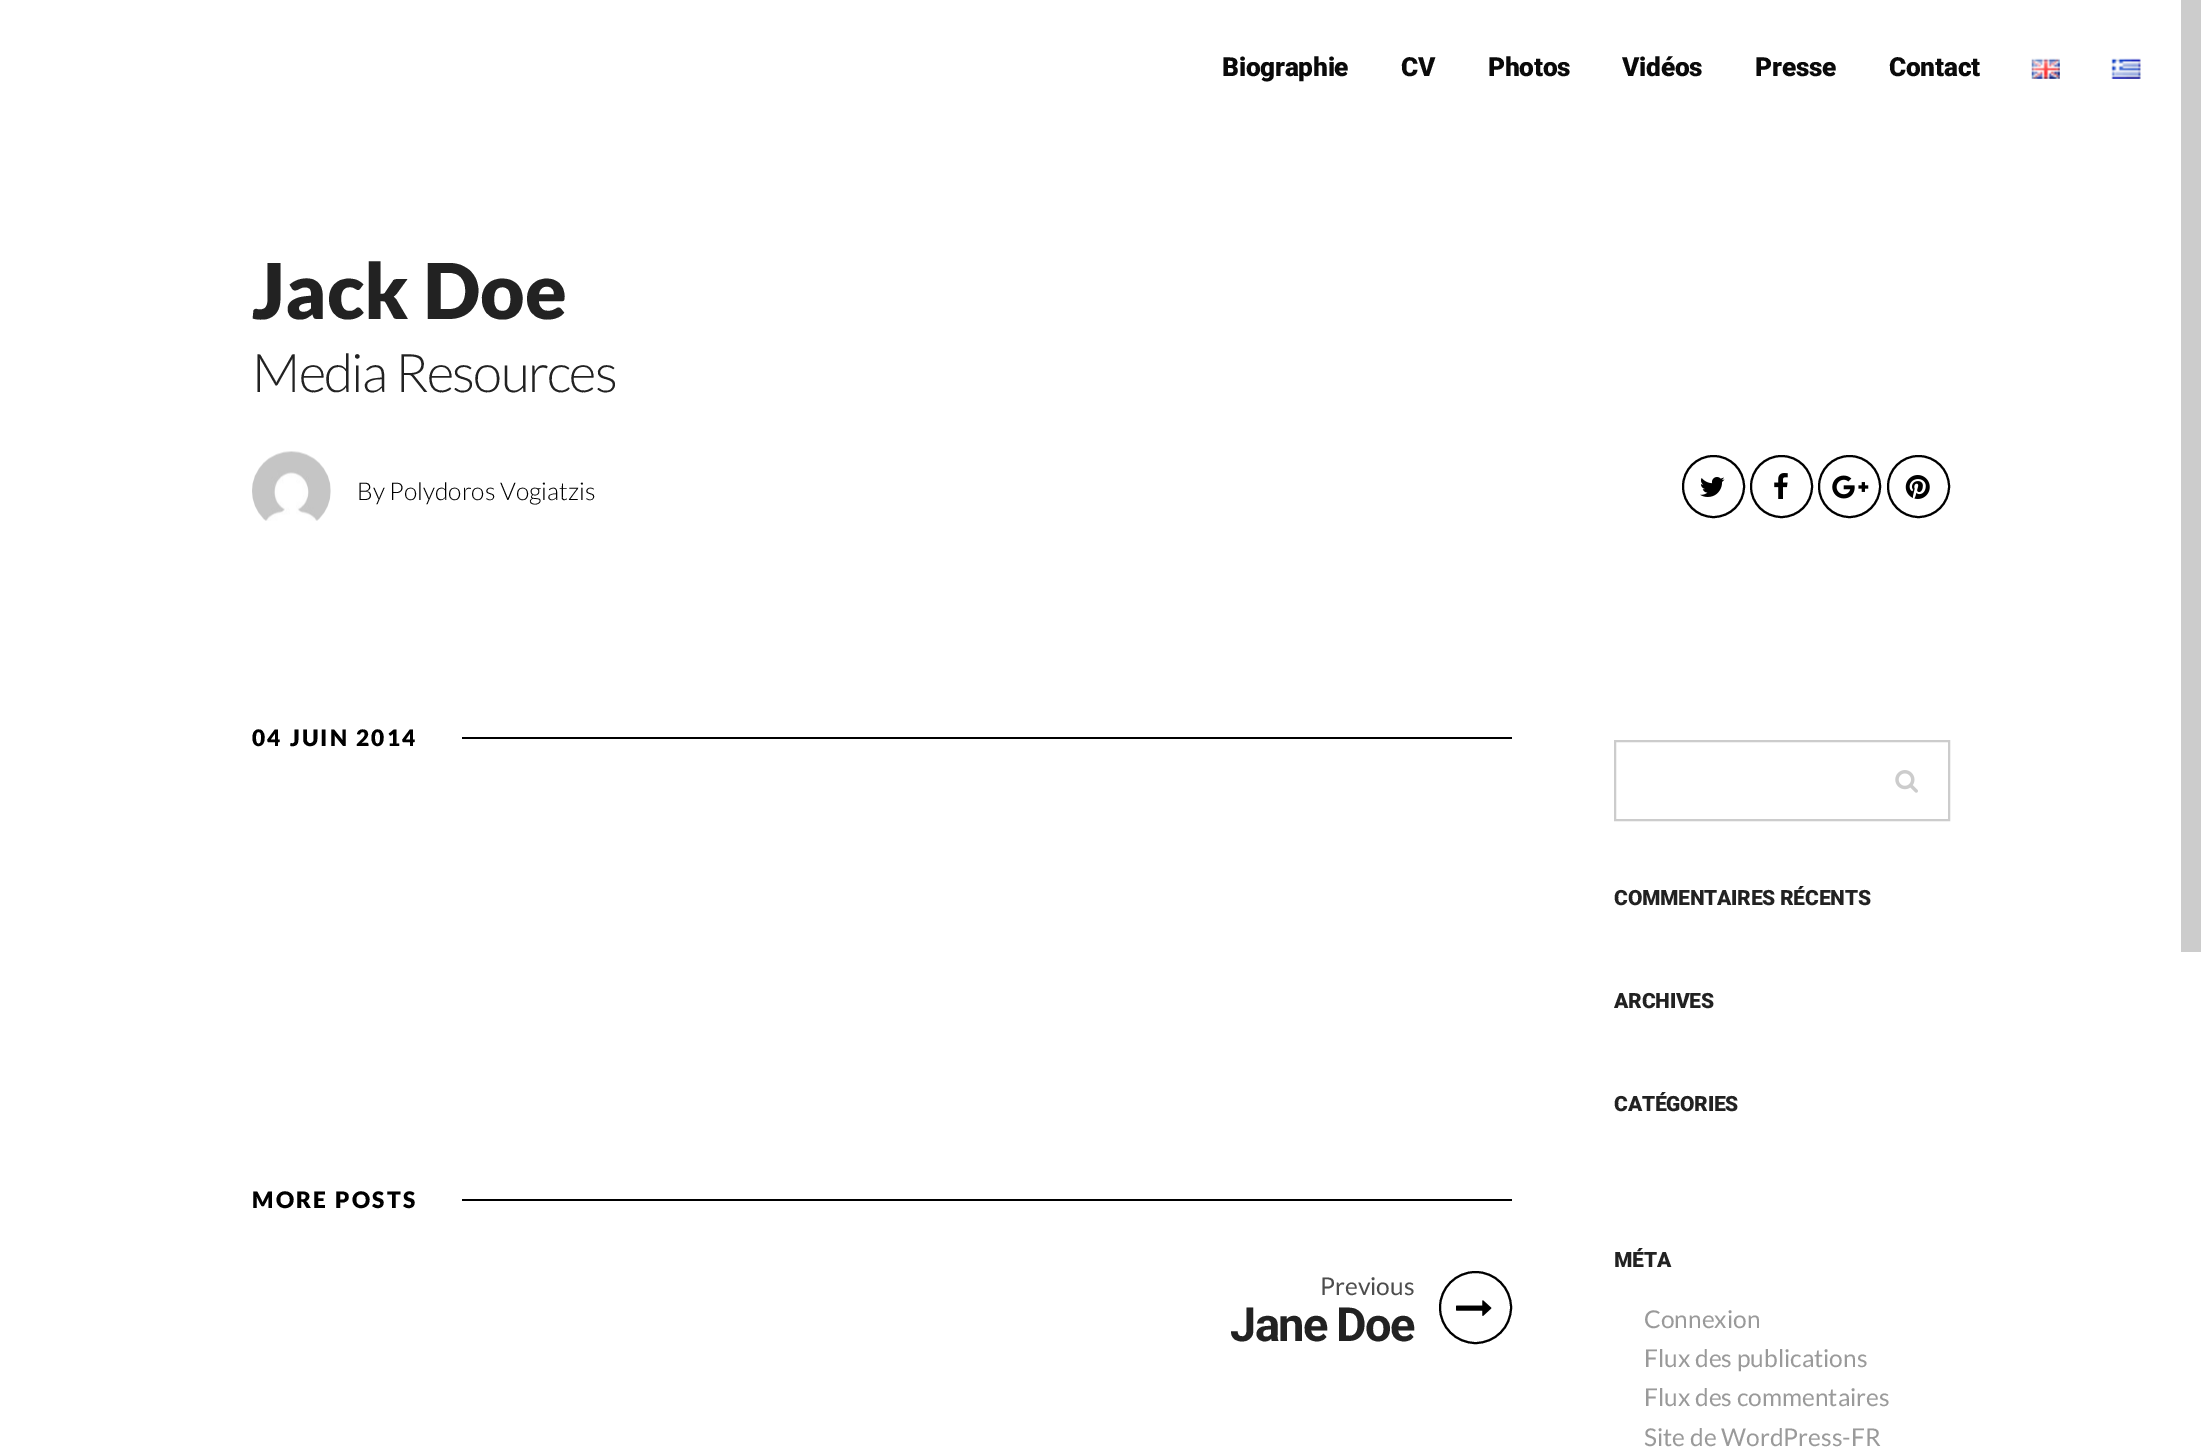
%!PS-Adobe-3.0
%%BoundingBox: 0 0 2201 1452
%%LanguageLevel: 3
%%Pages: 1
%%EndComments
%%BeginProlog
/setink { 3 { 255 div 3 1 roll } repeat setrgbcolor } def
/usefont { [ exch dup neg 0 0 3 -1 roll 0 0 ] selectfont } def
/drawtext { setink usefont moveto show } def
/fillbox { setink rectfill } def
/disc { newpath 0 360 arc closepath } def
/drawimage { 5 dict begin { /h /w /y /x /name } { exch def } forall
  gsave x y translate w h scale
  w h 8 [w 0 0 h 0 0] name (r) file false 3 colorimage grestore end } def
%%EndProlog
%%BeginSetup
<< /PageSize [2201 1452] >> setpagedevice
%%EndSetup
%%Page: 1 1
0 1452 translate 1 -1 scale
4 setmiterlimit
0 0 2201 1452 255 255 255 fillbox
/Roboto-Black 26.25 usefont
10 10 10 setink
1222 76 moveto -0.25 0 (Biographie) ashow
1401 76 moveto -0.25 0 (CV) ashow
1488 76 moveto -0.25 0 (Photos) ashow
1622 76 moveto -0.25 0 (Vidéos) ashow
1755 76 moveto -0.25 0 (Presse) ashow
1889 76 moveto -0.25 0 (Contact) ashow
(assets/img1.rgb) 2031 58 29 21 drawimage
(assets/img2.rgb) 2111 58 30 21 drawimage
2181 0 20 952 204 204 204 fillbox
(Jack Doe) 252 319 /Lato-Black 77 34 34 34 drawtext
/Lato-Light 53.25 usefont
252 392 moveto -1.75 0 (Media Resources) ashow
(assets/img3.rgb) 252 451 79 70 drawimage
(By Polydoros Vogiatzis) 357 500 /Lato-Light 24.5 0 0 0 drawtext
2 setlinewidth
1713.5 486.5 30.5 disc stroke
(assets/img4.rgb) 1700 477 25 20 drawimage
1781.5 486.5 30.5 disc stroke
(assets/img5.rgb) 1774 473 14 26 drawimage
1849.5 486.5 30.5 disc stroke
(assets/img6.rgb) 1832 475 37 24 drawimage
1918.5 486.5 30.5 disc stroke
(assets/img7.rgb) 1905 475 25 24 drawimage
/Lato-Black 22.75 usefont
252 746 moveto 2.25 0 (04 JUIN 2014) ashow
462 737 1050 2 0 0 0 fillbox
252 1208 moveto 2.25 0 (MORE POSTS) ashow
462 1199 1050 2 0 0 0 fillbox
(Previous) 1320 1295 /Lato-Regular 24.5 77 77 77 drawtext
/Roboto-Bold 47 usefont
34 34 34 setink
1230 1341 moveto -1.75 0 (Jane Doe) ashow
0 0 0 setink
1475.5 1307.5 35.5 disc stroke
(assets/img8.rgb) 1456 1300 36 16 drawimage
204 204 204 setink
1615 741 334 79 rectstroke
(assets/img9.rgb) 1895 770 23 23 drawimage
/Roboto-Black 21 usefont
34 34 34 setink
1614 905 moveto -0.25 0 (COMMENTAIRES RÉCENTS) ashow
1614 1008 moveto -0.25 0 (ARCHIVES) ashow
1614 1111 moveto -0.25 0 (CATÉGORIES) ashow
1614 1267 moveto -0.25 0 (MÉTA) ashow
(Connexion) 1644 1328 /Lato-Regular 24.5 154 154 154 drawtext
(Flux des publications) 1644 1367 /Lato-Regular 24.5 154 154 154 drawtext
(Flux des commentaires) 1644 1406 /Lato-Regular 24.5 154 154 154 drawtext
(Site de WordPress-FR) 1644 1446 /Lato-Regular 24.5 154 154 154 drawtext
showpage
%%EOF
